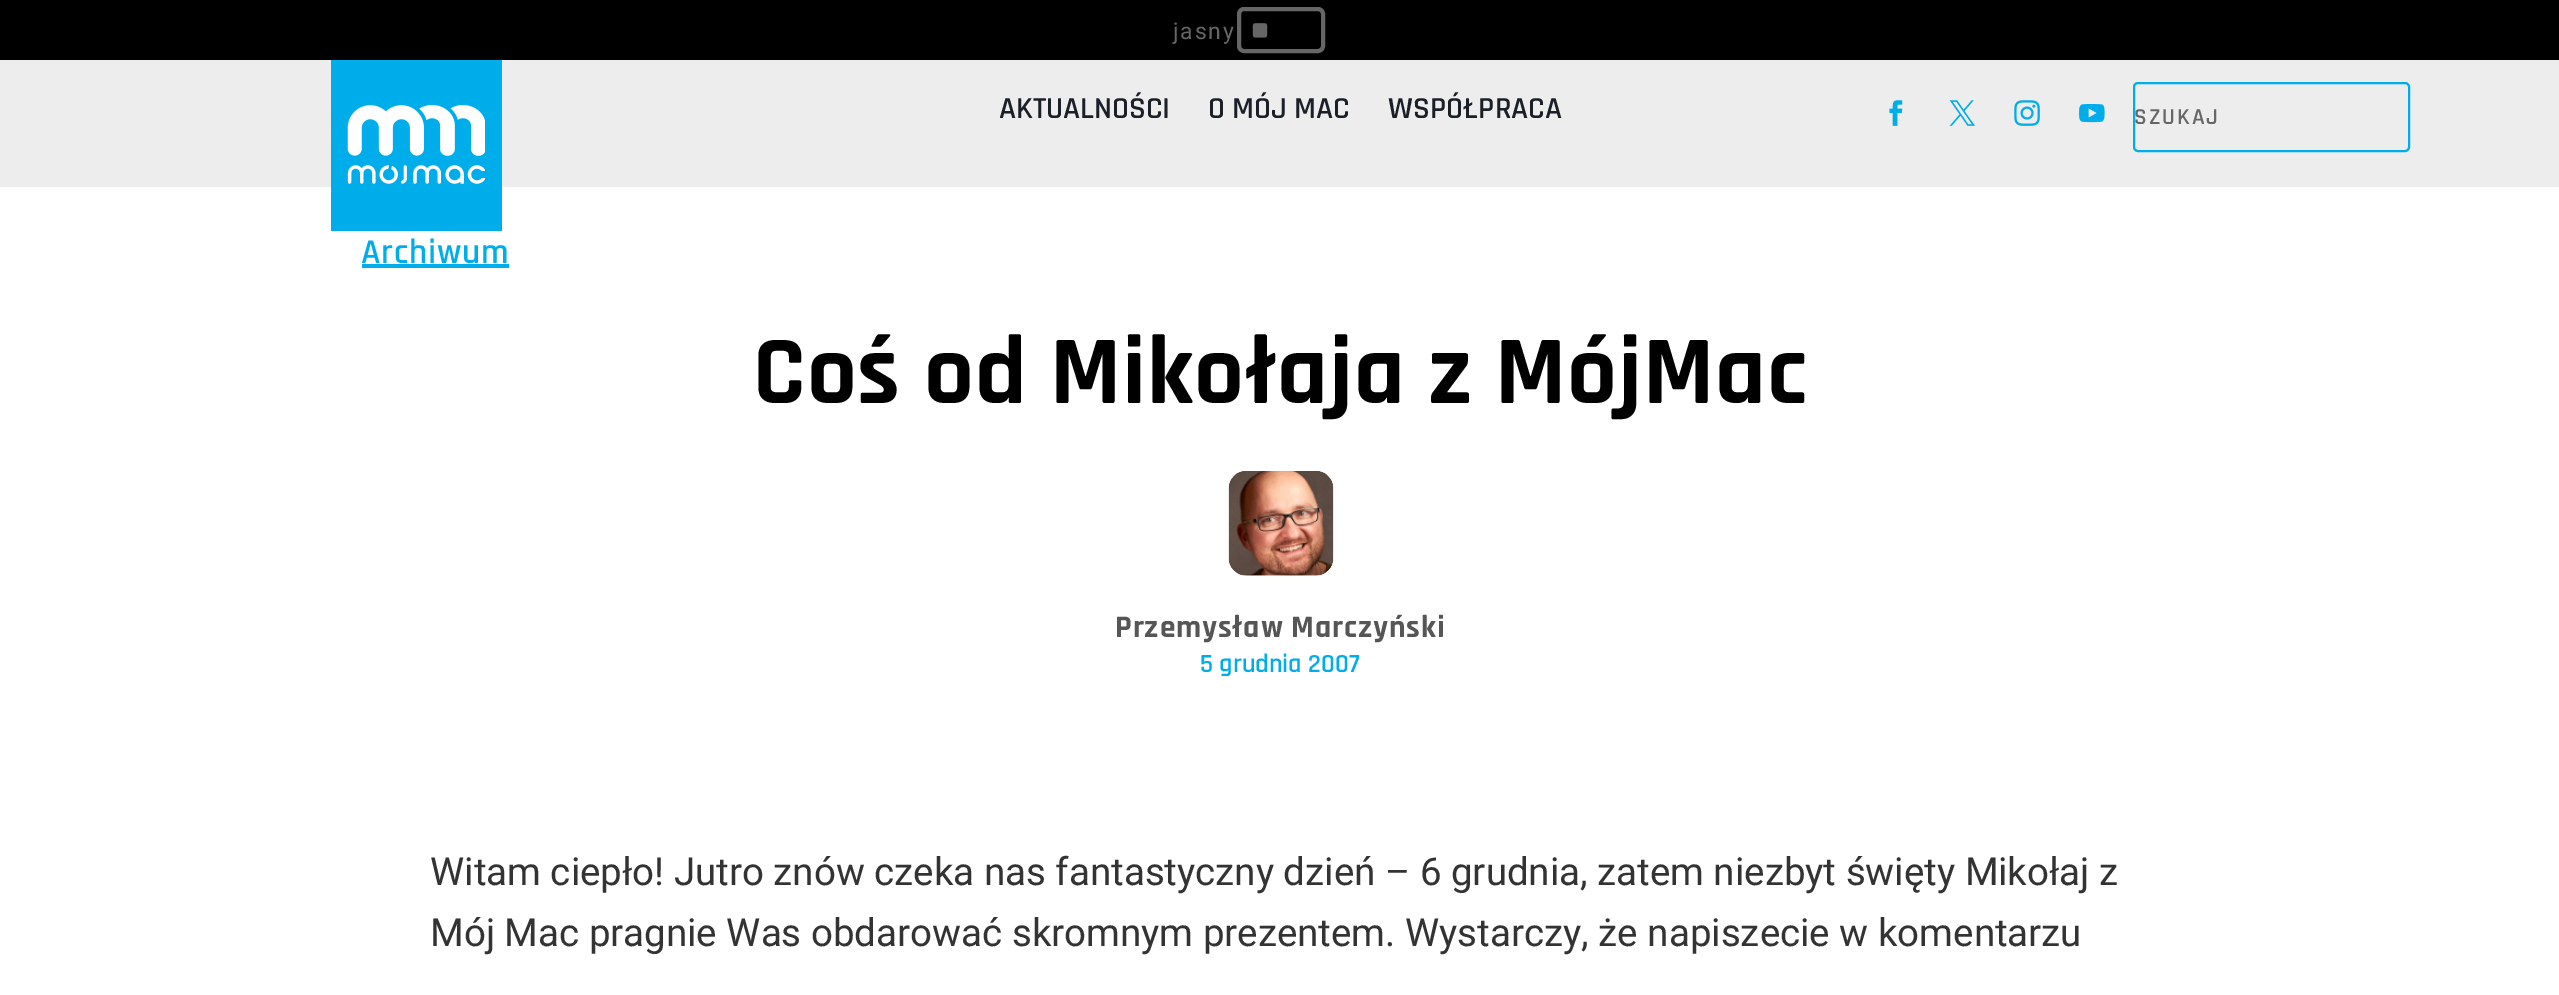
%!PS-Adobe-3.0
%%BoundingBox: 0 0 2559 995
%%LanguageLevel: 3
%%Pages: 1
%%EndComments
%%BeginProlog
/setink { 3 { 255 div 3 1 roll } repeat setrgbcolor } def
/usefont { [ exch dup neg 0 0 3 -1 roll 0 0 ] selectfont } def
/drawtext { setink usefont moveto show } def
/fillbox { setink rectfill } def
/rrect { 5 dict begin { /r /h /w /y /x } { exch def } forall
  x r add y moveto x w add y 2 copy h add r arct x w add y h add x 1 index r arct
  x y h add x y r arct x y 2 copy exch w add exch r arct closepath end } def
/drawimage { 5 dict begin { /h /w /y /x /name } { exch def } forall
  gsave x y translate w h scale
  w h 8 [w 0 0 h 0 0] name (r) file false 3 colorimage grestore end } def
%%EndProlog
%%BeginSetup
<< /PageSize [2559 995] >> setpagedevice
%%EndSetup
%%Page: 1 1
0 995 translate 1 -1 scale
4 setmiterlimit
0 0 2559 995 255 255 255 fillbox
0 0 2559 60 0 0 0 fillbox
102 102 102 setink
4 setlinewidth
1239 9 84 42 5 rrect stroke
/Roboto-Regular 23 usefont
1173 39 moveto 1.75 0 (jasny) ashow
(assets/img1.rgb) 1252 23 16 15 drawimage
0 60 2559 127 237 237 237 fillbox
331 60 171 171 0 173 235 fillbox
(assets/img2.rgb) 347 105 138 79 drawimage
(AKTUALNOŚCI) 999 118 /Rajdhani-SemiBold 30.75 26 31 40 drawtext
(O MÓJ MAC) 1208 118 /Rajdhani-SemiBold 30.75 26 31 40 drawtext
(WSPÓŁPRACA) 1388 118 /Rajdhani-SemiBold 30.75 26 31 40 drawtext
(assets/img3.rgb) 1889 100 14 26 drawimage
(assets/img4.rgb) 1949 100 26 26 drawimage
(assets/img5.rgb) 2014 100 26 26 drawimage
(assets/img6.rgb) 2079 103 26 20 drawimage
0 173 235 setink
2 setlinewidth
2134 83 275 68 4 rrect stroke
/Rajdhani-SemiBold 23 usefont
102 102 102 setink
2134 124 moveto 2 0 (SZUKAJ) ashow
/Rajdhani-SemiBold 35 usefont
0 173 235 setink
361 263 moveto 0.9 0 (Archiwum) ashow
362 264 147 4 0 173 235 fillbox
/Rajdhani-Bold 98 usefont
0 0 0 setink
753 403 moveto 0.9 0 (Coś od Mikołaja z MójMac) ashow
(assets/img7.rgb) 1228 471 106 105 drawimage
/Rajdhani-Bold 31.5 usefont
86 86 86 setink
1115 637 moveto 0.9 0 (Przemysław Marczyński) ashow
(5 grudnia 2007) 1200 672 /Rajdhani-SemiBold 26.25 0 173 235 drawtext
(Witam ciepło! Jutro znów czeka nas fantastyczny dzień – 6 grudnia, zatem niezbyt święty Mikołaj z) 430 885 /Roboto-Regular 38.5 51 51 51 drawtext
(Mój Mac pragnie Was obdarować skromnym prezentem. Wystarczy, że napiszecie w komentarzu) 430 946 /Roboto-Regular 38.5 51 51 51 drawtext
showpage
%%EOF
